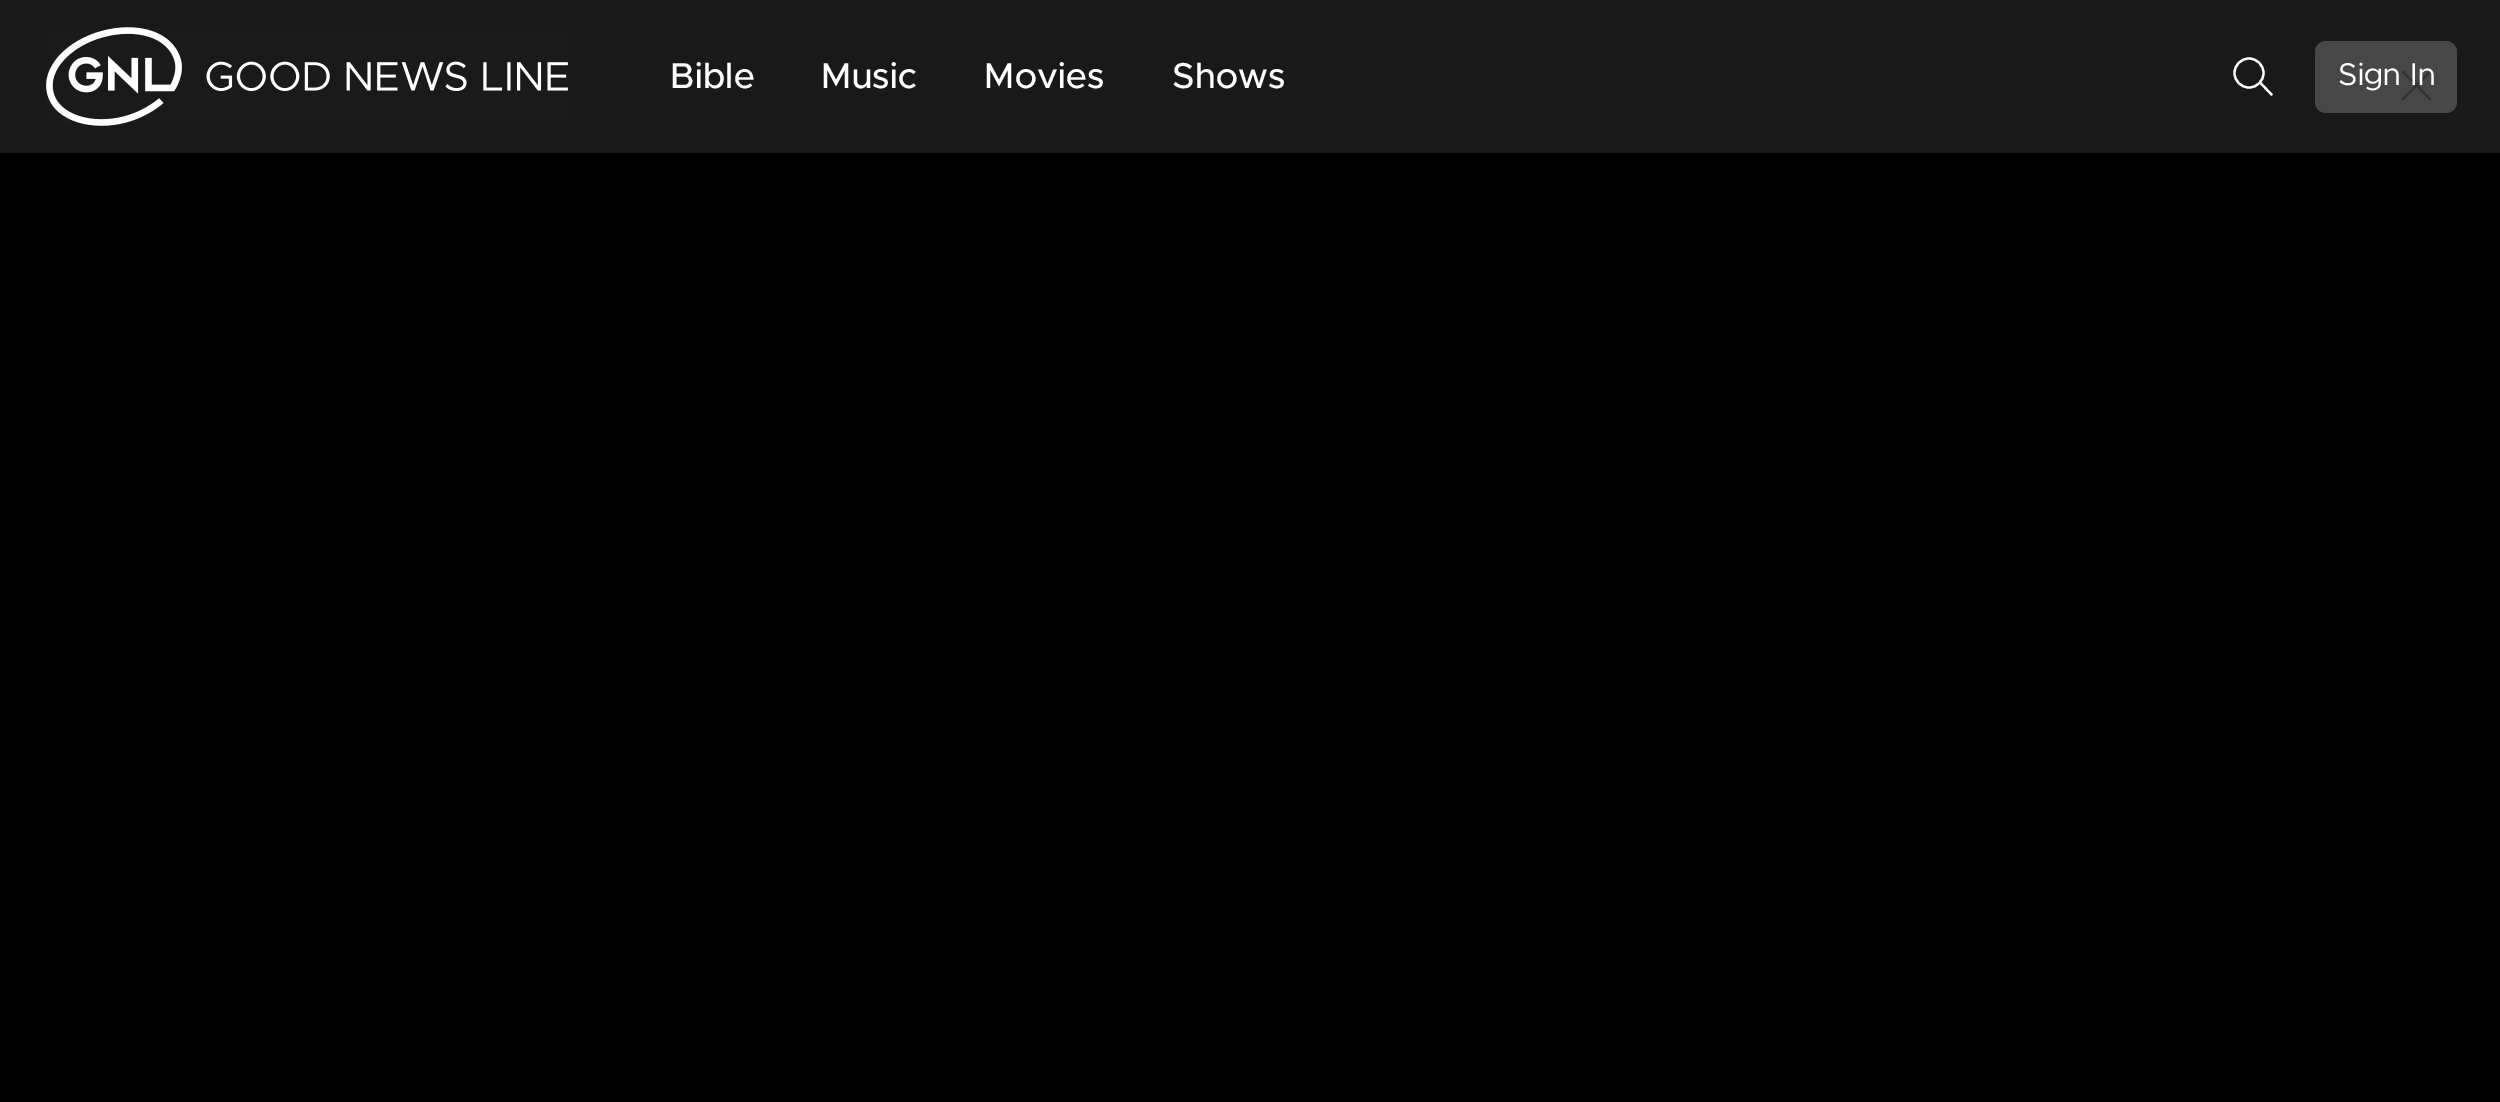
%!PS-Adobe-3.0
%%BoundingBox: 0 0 2500 1102
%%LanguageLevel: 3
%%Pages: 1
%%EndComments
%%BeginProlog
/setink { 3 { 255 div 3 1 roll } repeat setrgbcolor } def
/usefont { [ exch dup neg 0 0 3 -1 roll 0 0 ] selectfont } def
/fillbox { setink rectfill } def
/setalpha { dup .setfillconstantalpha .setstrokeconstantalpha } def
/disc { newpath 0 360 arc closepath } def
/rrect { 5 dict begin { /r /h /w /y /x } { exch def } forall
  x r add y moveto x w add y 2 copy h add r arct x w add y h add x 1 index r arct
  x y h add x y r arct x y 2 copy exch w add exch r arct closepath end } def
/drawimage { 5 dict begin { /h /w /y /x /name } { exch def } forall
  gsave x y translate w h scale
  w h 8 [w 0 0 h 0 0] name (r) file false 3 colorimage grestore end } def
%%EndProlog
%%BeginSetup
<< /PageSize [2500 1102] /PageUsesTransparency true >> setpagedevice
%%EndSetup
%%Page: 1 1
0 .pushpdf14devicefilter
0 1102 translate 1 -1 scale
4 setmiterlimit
0 0 2500 1102 25 25 25 fillbox
(assets/img1.rgb) 46 27 522 99 drawimage
/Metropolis-Medium 36 usefont
255 255 255 setink
670 88 moveto 0.5 0 (Bible) ashow
821 88 moveto 0.5 0 (Music) ashow
984 88 moveto 0.5 0 (Movies) ashow
1172 88 moveto 0.5 0 (Shows) ashow
2.2 setlinewidth
2249 73 14.5 disc stroke
1 setlinecap
1 setlinejoin
2260.5 83 moveto 2271.5 94.5 lineto stroke
0 0 0 setink
0 setlinejoin
2403 72 moveto 2416.5 85.5 lineto 2416.5 85.5 moveto 2430 99 lineto 2416.5 85.5 moveto 2430 72 lineto 2416.5 85.5 moveto 2403 99 lineto stroke
0.2 setalpha
255 255 255 setink
2315 41 142 72 11 rrect fill
/Metropolis-Regular 31.5 usefont
1 setalpha
2338 85 moveto 0.5 0 (Sign In) ashow
0 153 2500 949 0 0 0 fillbox
.poppdf14devicefilter showpage
%%EOF
